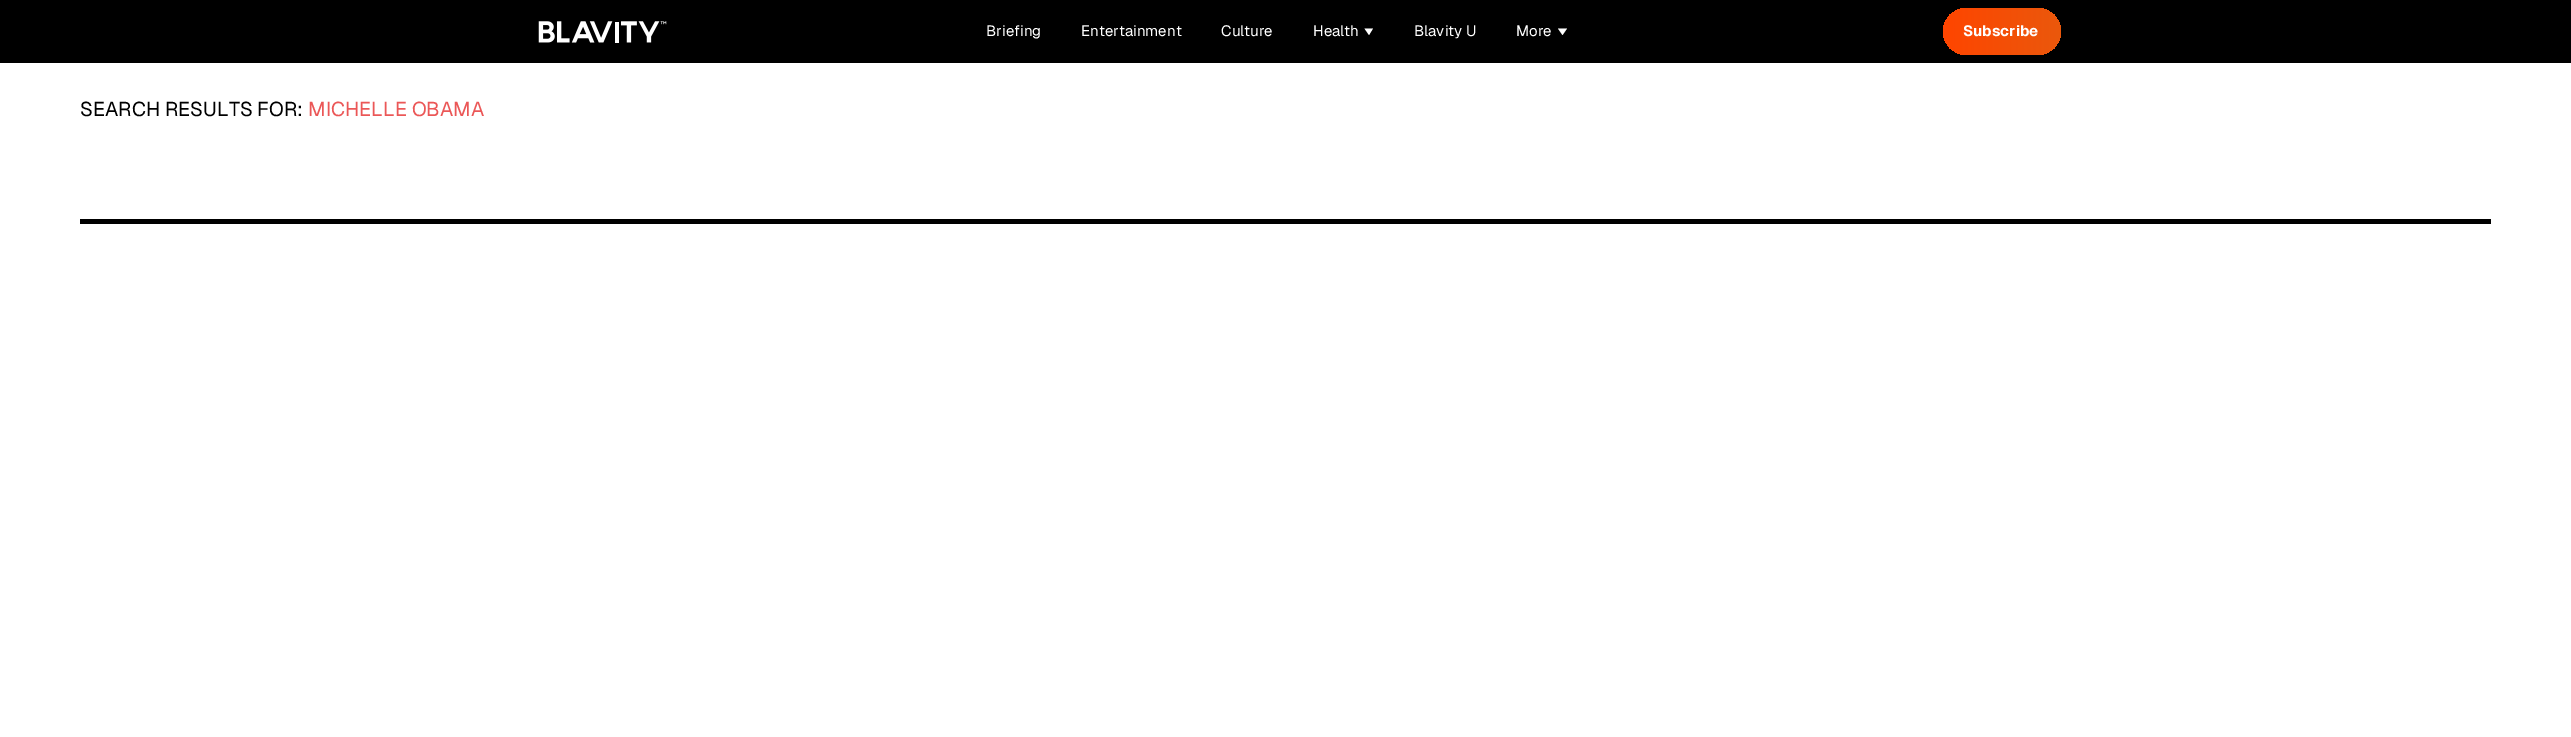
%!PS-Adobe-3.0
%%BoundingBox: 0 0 2571 737
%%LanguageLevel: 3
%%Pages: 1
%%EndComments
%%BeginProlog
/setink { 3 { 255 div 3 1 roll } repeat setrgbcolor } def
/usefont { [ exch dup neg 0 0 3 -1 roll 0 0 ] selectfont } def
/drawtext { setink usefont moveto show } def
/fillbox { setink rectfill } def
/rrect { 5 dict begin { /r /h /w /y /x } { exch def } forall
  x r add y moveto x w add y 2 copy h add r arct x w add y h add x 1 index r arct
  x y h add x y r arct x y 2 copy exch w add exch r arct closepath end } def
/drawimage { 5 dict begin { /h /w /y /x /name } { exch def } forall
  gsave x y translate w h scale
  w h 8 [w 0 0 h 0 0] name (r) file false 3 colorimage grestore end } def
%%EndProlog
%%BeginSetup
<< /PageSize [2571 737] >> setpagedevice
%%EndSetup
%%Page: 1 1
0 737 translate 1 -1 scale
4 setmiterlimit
0 0 2571 737 255 255 255 fillbox
0 0 2571 63 0 0 0 fillbox
(assets/img1.rgb) 538 21 129 22 drawimage
(Briefing) 986 36 /Geist-Regular 15 255 255 255 drawtext
(Entertainment) 1081 36 /Geist-Regular 15 255 255 255 drawtext
(Culture) 1221 36 /Geist-Regular 15 255 255 255 drawtext
(Health) 1313 36 /Geist-Regular 15 255 255 255 drawtext
1369 35 moveto 1364.5 28.5 lineto 1373 28.5 lineto closepath fill
(Blavity U) 1414 36 /Geist-Regular 15 255 255 255 drawtext
(More) 1516 36 /Geist-Regular 15 255 255 255 drawtext
1562.5 35 moveto 1558 28.5 lineto 1567 28.5 lineto closepath fill
gsave 1943 8 118 47 23.5 rrect clip newpath
<< /ShadingType 2 /ColorSpace /DeviceRGB /Coords [1943 31 2061 31] /Extend [true true] /Function << /FunctionType 2 /Domain [0 1] /C0 [1 0.271 0] /C1 [0.918 0.345 0.047] /N 1 >> >> shfill grestore
(Subscribe) 1963 36 /Geist-Bold 15 255 255 255 drawtext
(SEARCH RESULTS FOR:) 80 116 /Geist-Regular 20 0 0 0 drawtext
(MICHELLE OBAMA) 308 116 /Geist-Regular 20 235 87 87 drawtext
80 219 2411 5 0 0 0 fillbox
showpage
%%EOF
